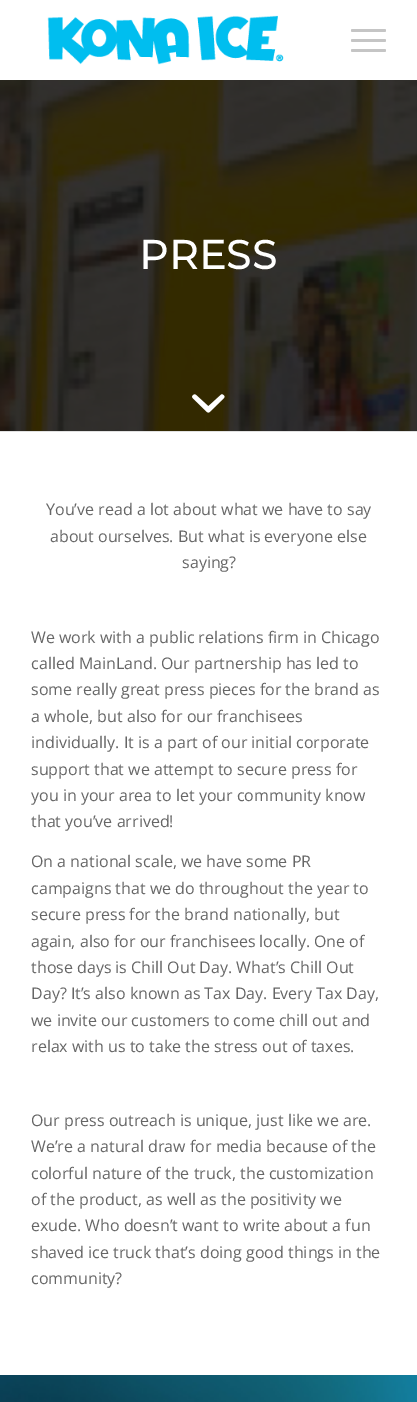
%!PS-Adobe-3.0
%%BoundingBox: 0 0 417 1402
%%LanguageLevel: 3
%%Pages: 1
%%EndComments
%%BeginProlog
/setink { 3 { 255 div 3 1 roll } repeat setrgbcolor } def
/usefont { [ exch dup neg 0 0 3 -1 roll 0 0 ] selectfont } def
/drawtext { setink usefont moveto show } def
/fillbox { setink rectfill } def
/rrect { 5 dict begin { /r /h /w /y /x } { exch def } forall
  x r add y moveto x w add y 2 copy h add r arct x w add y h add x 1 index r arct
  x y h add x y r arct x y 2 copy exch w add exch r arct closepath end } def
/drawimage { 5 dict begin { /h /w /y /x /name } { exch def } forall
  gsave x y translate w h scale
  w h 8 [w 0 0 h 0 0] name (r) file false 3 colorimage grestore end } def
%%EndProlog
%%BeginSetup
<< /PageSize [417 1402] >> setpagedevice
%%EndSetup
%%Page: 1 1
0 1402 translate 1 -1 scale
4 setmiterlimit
0 0 417 1402 255 255 255 fillbox
(assets/img1.rgb) 47 15 237 50 drawimage
197 197 197 setink
351 39 35 3 1.5 rrect fill
351 29 35 3 1.5 rrect fill
351 49 35 3 1.5 rrect fill
(assets/img2.rgb) 0 80 417 351 drawimage
/Montserrat-Bold 40 usefont
255 255 255 setink
139 269 moveto 1 0 (PRESS) ashow
(assets/img3.rgb) 192 394 33 19 drawimage
0 431 417 1 225 225 225 fillbox
(You’ve read a lot about what we have to say) 46 515 /OpenSans-Regular 16 102 102 102 drawtext
(about ourselves. But what is everyone else) 50 542 /OpenSans-Regular 16 102 102 102 drawtext
(saying?) 182 568 /OpenSans-Regular 16 102 102 102 drawtext
(We work with a public relations firm in Chicago) 31 643 /OpenSans-Regular 16 102 102 102 drawtext
(called MainLand. Our partnership has led to) 31 669 /OpenSans-Regular 16 102 102 102 drawtext
(some really great press pieces for the brand as) 31 695 /OpenSans-Regular 16 102 102 102 drawtext
(a whole, but also for our franchisees) 31 722 /OpenSans-Regular 16 102 102 102 drawtext
(individually. It is a part of our initial corporate) 31 748 /OpenSans-Regular 16 102 102 102 drawtext
(support that we attempt to secure press for) 31 775 /OpenSans-Regular 16 102 102 102 drawtext
(you in your area to let your community know) 31 801 /OpenSans-Regular 16 102 102 102 drawtext
(that you’ve arrived!) 31 827 /OpenSans-Regular 16 102 102 102 drawtext
(On a national scale, we have some PR) 31 867 /OpenSans-Regular 16 102 102 102 drawtext
(campaigns that we do throughout the year to) 31 894 /OpenSans-Regular 16 102 102 102 drawtext
(secure press for the brand nationally, but) 31 920 /OpenSans-Regular 16 102 102 102 drawtext
(again, also for our franchisees locally. One of) 31 947 /OpenSans-Regular 16 102 102 102 drawtext
(those days is Chill Out Day. What’s Chill Out) 31 973 /OpenSans-Regular 16 102 102 102 drawtext
(Day? It’s also known as Tax Day. Every Tax Day,) 31 999 /OpenSans-Regular 16 102 102 102 drawtext
(we invite our customers to come chill out and) 31 1026 /OpenSans-Regular 16 102 102 102 drawtext
(relax with us to take the stress out of taxes.) 31 1052 /OpenSans-Regular 16 102 102 102 drawtext
(Our press outreach is unique, just like we are.) 31 1126 /OpenSans-Regular 16 102 102 102 drawtext
(We’re a natural draw for media because of the) 31 1152 /OpenSans-Regular 16 102 102 102 drawtext
(colorful nature of the truck, the customization) 31 1179 /OpenSans-Regular 16 102 102 102 drawtext
(of the product, as well as the positivity we) 31 1205 /OpenSans-Regular 16 102 102 102 drawtext
(exude. Who doesn’t want to write about a fun) 31 1231 /OpenSans-Regular 16 102 102 102 drawtext
(shaved ice truck that’s doing good things in the) 31 1258 /OpenSans-Regular 16 102 102 102 drawtext
(community?) 31 1284 /OpenSans-Regular 16 102 102 102 drawtext
(assets/img4.rgb) 0 1375 417 27 drawimage
showpage
%%EOF
